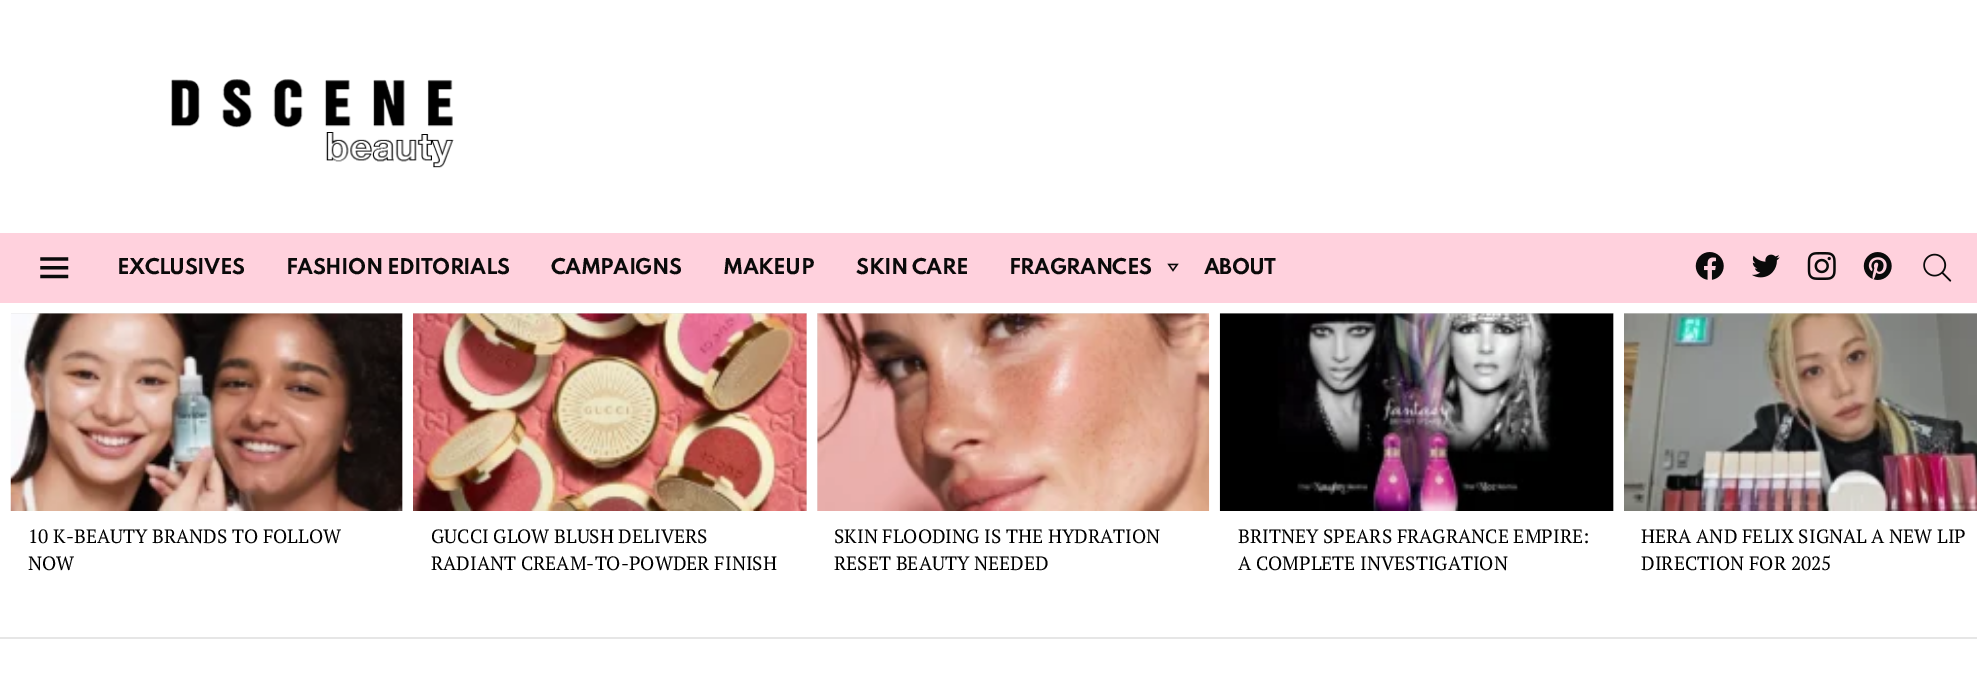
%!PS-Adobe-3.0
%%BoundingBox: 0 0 1977 695
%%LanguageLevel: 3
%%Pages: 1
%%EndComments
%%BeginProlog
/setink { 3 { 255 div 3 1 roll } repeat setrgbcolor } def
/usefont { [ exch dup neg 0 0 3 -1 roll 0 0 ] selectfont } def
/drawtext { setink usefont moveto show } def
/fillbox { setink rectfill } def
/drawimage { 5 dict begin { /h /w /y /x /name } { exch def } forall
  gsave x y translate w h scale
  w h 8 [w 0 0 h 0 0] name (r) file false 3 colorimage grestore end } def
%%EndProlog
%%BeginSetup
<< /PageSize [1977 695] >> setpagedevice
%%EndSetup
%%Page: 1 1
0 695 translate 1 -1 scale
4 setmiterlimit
0 0 1977 695 255 255 255 fillbox
(assets/img1.rgb) 171 79 283 89 drawimage
0 233 1977 70 255 209 221 fillbox
(assets/img2.rgb) 40 257 29 22 drawimage
/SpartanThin-Bold 19.25 usefont
10 10 10 setink
117 274 moveto -0.6 0 (EXCLUSIVES) ashow
286 274 moveto -0.6 0 (FASHION EDITORIALS) ashow
551 274 moveto -0.6 0 (CAMPAIGNS) ashow
723 274 moveto -0.6 0 (MAKEUP) ashow
856 274 moveto -0.6 0 (SKIN CARE) ashow
1009 274 moveto -0.6 0 (FRAGRANCES) ashow
(assets/img3.rgb) 1167 263 12 9 drawimage
1204 274 moveto -0.6 0 (ABOUT) ashow
(assets/img4.rgb) 1695 252 29 28 drawimage
(assets/img5.rgb) 1752 254 28 24 drawimage
(assets/img6.rgb) 1807 252 29 28 drawimage
(assets/img7.rgb) 1863 252 29 28 drawimage
(assets/img8.rgb) 1923 253 29 29 drawimage
0 637 1977 2 230 230 230 fillbox
11 313 392 198 230 230 230 fillbox
(assets/img9.rgb) 10 313 393 198 drawimage
(10 K-BEAUTY BRANDS TO FOLLOW) 28 543 /PTSerif-Regular 19.25 0 0 0 drawtext
(NOW) 28 570 /PTSerif-Regular 19.25 0 0 0 drawtext
413 313 394 198 230 230 230 fillbox
(assets/img10.rgb) 413 313 394 198 drawimage
(GUCCI GLOW BLUSH DELIVERS) 431 543 /PTSerif-Regular 19.25 0 0 0 drawtext
(RADIANT CREAM-TO-POWDER FINISH) 431 570 /PTSerif-Regular 19.25 0 0 0 drawtext
817 313 392 198 230 230 230 fillbox
(assets/img11.rgb) 817 313 393 198 drawimage
(SKIN FLOODING IS THE HYDRATION) 834 543 /PTSerif-Regular 19.25 0 0 0 drawtext
(RESET BEAUTY NEEDED) 834 570 /PTSerif-Regular 19.25 0 0 0 drawtext
1220 313 394 198 230 230 230 fillbox
(assets/img12.rgb) 1219 313 395 198 drawimage
(BRITNEY SPEARS FRAGRANCE EMPIRE:) 1238 543 /PTSerif-Regular 19.25 0 0 0 drawtext
(A COMPLETE INVESTIGATION) 1238 570 /PTSerif-Regular 19.25 0 0 0 drawtext
1624 313 353 1 230 230 230 fillbox
(assets/img13.rgb) 1624 313 353 198 drawimage
(HERA AND FELIX SIGNAL A NEW LIP) 1641 543 /PTSerif-Regular 19.25 0 0 0 drawtext
(DIRECTION FOR 2025) 1641 570 /PTSerif-Regular 19.25 0 0 0 drawtext
showpage
%%EOF
